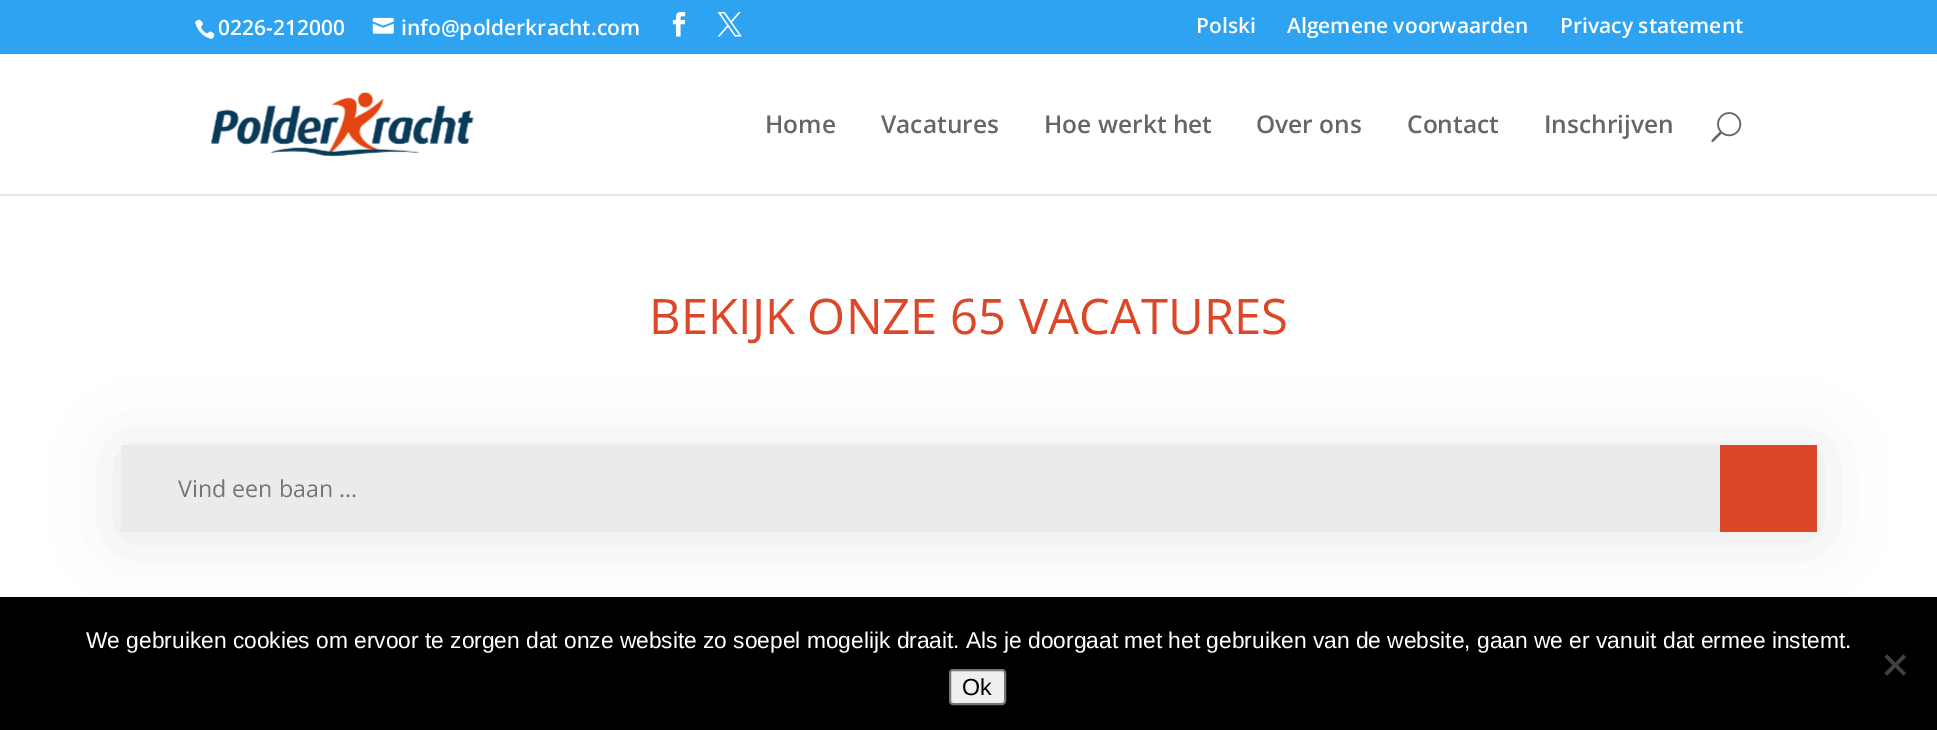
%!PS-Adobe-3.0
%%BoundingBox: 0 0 1937 730
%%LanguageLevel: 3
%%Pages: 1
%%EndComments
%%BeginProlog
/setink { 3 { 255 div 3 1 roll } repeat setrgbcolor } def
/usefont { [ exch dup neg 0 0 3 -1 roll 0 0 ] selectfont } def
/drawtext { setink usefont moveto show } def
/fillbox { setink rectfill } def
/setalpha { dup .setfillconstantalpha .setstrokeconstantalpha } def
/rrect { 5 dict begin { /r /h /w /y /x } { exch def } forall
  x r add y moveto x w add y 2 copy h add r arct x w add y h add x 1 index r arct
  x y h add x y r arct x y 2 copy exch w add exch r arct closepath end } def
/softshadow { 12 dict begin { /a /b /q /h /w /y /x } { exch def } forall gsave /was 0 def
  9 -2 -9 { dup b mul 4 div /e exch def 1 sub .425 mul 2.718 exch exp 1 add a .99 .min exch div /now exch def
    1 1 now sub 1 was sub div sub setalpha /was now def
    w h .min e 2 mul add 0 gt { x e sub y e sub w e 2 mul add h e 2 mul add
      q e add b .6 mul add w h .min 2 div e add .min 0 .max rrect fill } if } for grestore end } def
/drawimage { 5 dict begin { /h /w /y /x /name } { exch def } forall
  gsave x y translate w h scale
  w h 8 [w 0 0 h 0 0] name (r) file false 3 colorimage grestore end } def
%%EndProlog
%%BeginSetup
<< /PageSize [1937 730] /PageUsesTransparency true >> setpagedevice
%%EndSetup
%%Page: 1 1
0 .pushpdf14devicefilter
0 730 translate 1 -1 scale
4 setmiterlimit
0 0 1937 730 255 255 255 fillbox
0 0 1937 54 46 163 242 fillbox
(assets/img1.rgb) 195 19 20 20 drawimage
(0226-212000) 218 35 /OpenSans-SemiBold 21 255 255 255 drawtext
(assets/img2.rgb) 372 17 22 17 drawimage
(info@polderkracht.com) 401 35 /OpenSans-SemiBold 21 255 255 255 drawtext
(assets/img3.rgb) 672 12 14 25 drawimage
(assets/img4.rgb) 717 12 25 25 drawimage
(Polski) 1196 33 /OpenSans-SemiBold 21 255 255 255 drawtext
(Algemene voorwaarden) 1287 33 /OpenSans-SemiBold 21 255 255 255 drawtext
(Privacy statement) 1560 33 /OpenSans-SemiBold 21 255 255 255 drawtext
0 194 1937 2 230 230 230 fillbox
(assets/img5.rgb) 210 91 264 66 drawimage
(Home) 765 133 /OpenSans-SemiBold 24.5 102 102 102 drawtext
(Vacatures) 881 133 /OpenSans-SemiBold 24.5 102 102 102 drawtext
(Hoe werkt het) 1044 133 /OpenSans-SemiBold 24.5 102 102 102 drawtext
(Over ons) 1256 133 /OpenSans-SemiBold 24.5 102 102 102 drawtext
(Contact) 1407 133 /OpenSans-SemiBold 24.5 102 102 102 drawtext
(Inschrijven) 1544 133 /OpenSans-SemiBold 24.5 102 102 102 drawtext
(assets/img6.rgb) 1711 112 31 30 drawimage
(BEKIJK ONZE 65 VACATURES) 649 334 /OpenSans-Regular 49 220 71 39 drawtext
0 0 0 setink
121 450 1696 87 0 33 0.1 softshadow
121 445 1599 87 235 235 235 fillbox
(Vind een baan …) 178 497 /OpenSans-Regular 23.25 117 117 117 drawtext
1720 445 97 87 220 71 39 fillbox
0 597 1937 133 0 0 0 fillbox
(We gebruiken cookies om ervoor te zorgen dat onze website zo soepel mogelijk draait. Als je doorgaat met het gebruiken van de website, gaan we er vanuit dat ermee instemt.) 86 648 /LiberationSans-Regular 22.75 255 255 255 drawtext
64 64 64 setink
1903.5 654.5 moveto 1906 657 lineto 1887 675.5 lineto 1884.5 673 lineto closepath fill
1884.5 657 moveto 1887 654.5 lineto 1906 673 lineto 1903.5 675.5 lineto closepath fill
239 239 239 setink
950 670 55 34 3 rrect gsave fill grestore
118 118 118 setink
2 setlinewidth
stroke
(Ok) 962 695 /LiberationSans-Regular 23.25 0 0 0 drawtext
.poppdf14devicefilter showpage
%%EOF
